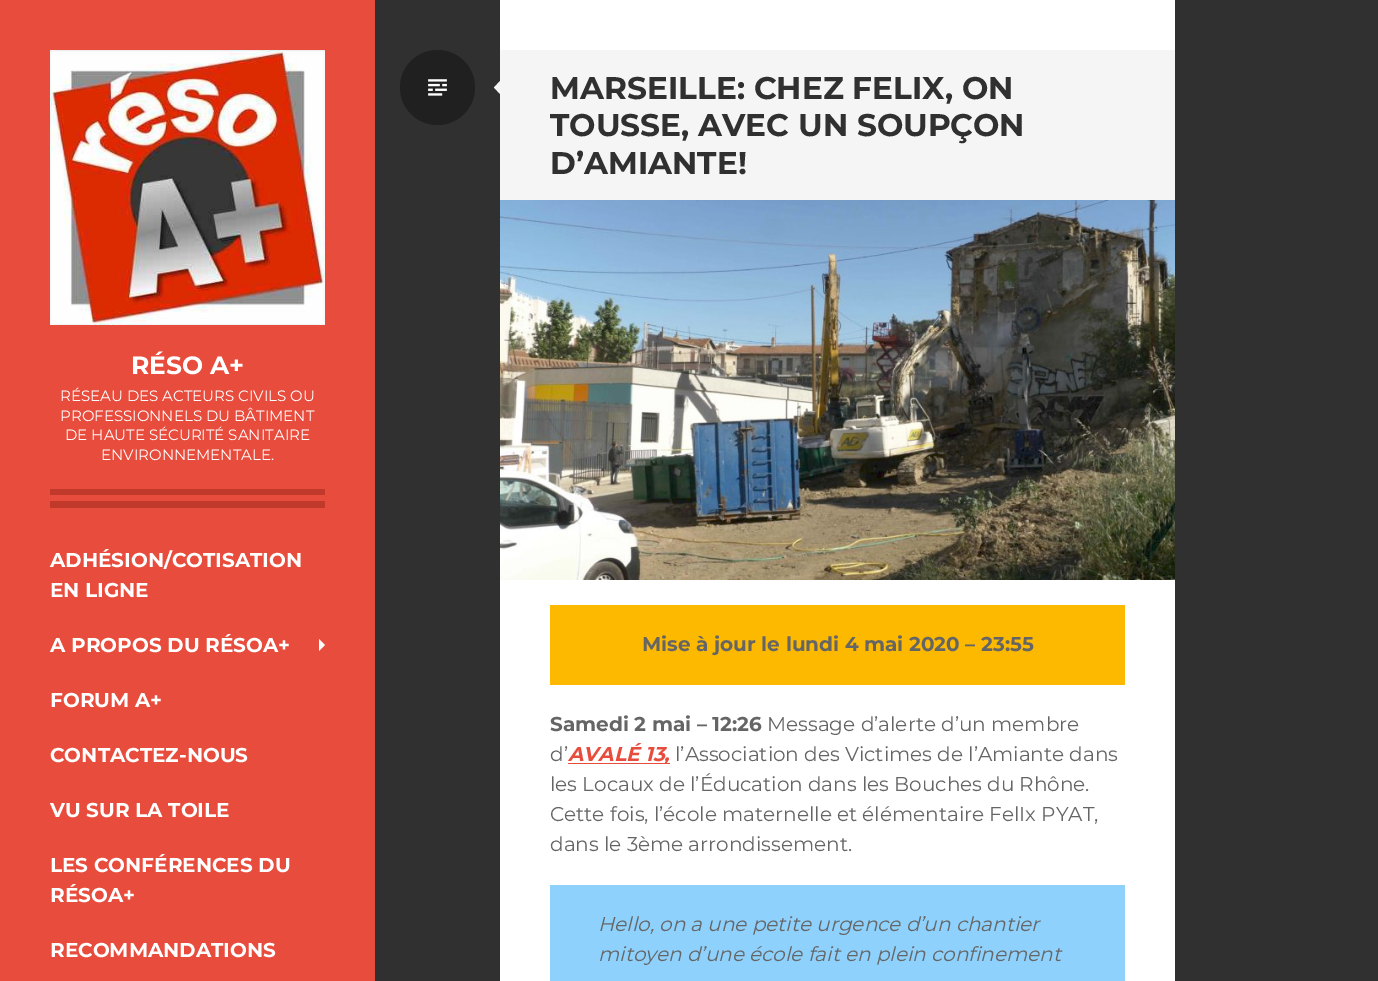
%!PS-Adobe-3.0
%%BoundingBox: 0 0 1378 981
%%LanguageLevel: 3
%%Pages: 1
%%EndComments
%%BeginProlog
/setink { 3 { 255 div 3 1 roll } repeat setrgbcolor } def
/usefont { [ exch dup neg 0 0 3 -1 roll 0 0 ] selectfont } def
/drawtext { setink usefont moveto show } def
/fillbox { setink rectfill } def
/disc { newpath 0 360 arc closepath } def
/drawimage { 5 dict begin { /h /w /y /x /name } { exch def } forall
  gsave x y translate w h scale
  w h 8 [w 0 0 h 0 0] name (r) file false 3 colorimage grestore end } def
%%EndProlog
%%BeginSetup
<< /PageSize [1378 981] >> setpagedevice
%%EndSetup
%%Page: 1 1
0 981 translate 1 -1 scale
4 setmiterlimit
0 0 1378 981 48 48 48 fillbox
0 0 375 981 231 76 60 fillbox
500 0 675 981 255 255 255 fillbox
(assets/img1.rgb) 50 50 275 275 drawimage
50 489 275 6 192 57 43 fillbox
50 501 275 7 192 57 43 fillbox
(RÉSO A+) 131 374 /Montserrat-Bold 25 255 255 255 drawtext
(RÉSEAU DES ACTEURS CIVILS OU) 60 401 /Montserrat-Regular 15 255 255 255 drawtext
(PROFESSIONNELS DU BÂTIMENT) 60 421 /Montserrat-Regular 15 255 255 255 drawtext
(DE HAUTE SÉCURITÉ SANITAIRE) 65 440 /Montserrat-Regular 15 255 255 255 drawtext
(ENVIRONNEMENTALE.) 101 460 /Montserrat-Regular 15 255 255 255 drawtext
(ADHÉSION/COTISATION) 50 567 /Montserrat-Bold 20 255 255 255 drawtext
(EN LIGNE) 50 597 /Montserrat-Bold 20 255 255 255 drawtext
(A PROPOS DU RÉSOA+) 50 652 /Montserrat-Bold 20 255 255 255 drawtext
319 651 moveto 319 639 lineto 325 645 lineto closepath fill
(FORUM A+) 50 707 /Montserrat-Bold 20 255 255 255 drawtext
(CONTACTEZ-NOUS) 50 762 /Montserrat-Bold 20 255 255 255 drawtext
(VU SUR LA TOILE) 50 817 /Montserrat-Bold 20 255 255 255 drawtext
(LES CONFÉRENCES DU) 50 872 /Montserrat-Bold 20 255 255 255 drawtext
(RÉSOA+) 50 902 /Montserrat-Bold 20 255 255 255 drawtext
(RECOMMANDATIONS) 50 957 /Montserrat-Bold 20 255 255 255 drawtext
32 32 32 setink
437.5 87.5 37.5 disc fill
(assets/img2.rgb) 428 79 19 17 drawimage
500 50 675 150 245 245 245 fillbox
500 81 moveto 500 94 lineto 494 87.5 lineto closepath fill
(MARSEILLE: CHEZ FELIX, ON) 550 99 /Montserrat-Bold 31.25 48 48 48 drawtext
(TOUSSE, AVEC UN SOUPÇON) 550 136 /Montserrat-Bold 31.25 48 48 48 drawtext
(D’AMIANTE!) 550 174 /Montserrat-Bold 31.25 48 48 48 drawtext
(assets/img3.rgb) 500 200 675 380 drawimage
550 605 575 80 252 185 0 fillbox
(Mise à jour le lundi 4 mai 2020 – 23:55) 642 651 /Montserrat-Bold 20 101 101 101 drawtext
(Samedi 2 mai – 12:26) 550 731 /Montserrat-Bold 20 101 101 101 drawtext
(Message d’alerte d’un membre) 767 731 /Montserrat-Regular 20 101 101 101 drawtext
(d’) 550 761 /Montserrat-Regular 20 101 101 101 drawtext
568 763 102 1 231 76 60 fillbox
(AVALÉ 13,) 568 761 /Montserrat-BoldItalic 20 231 76 60 drawtext
(l’Association des Victimes de l’Amiante dans) 675 761 /Montserrat-Regular 20 101 101 101 drawtext
(les Locaux de l’Éducation dans les Bouches du Rhône.) 550 791 /Montserrat-Regular 20 101 101 101 drawtext
(Cette fois, l’école maternelle et élémentaire FelIx PYAT,) 550 821 /Montserrat-Regular 20 101 101 101 drawtext
(dans le 3ème arrondissement.) 550 851 /Montserrat-Regular 20 101 101 101 drawtext
550 885 575 96 142 209 252 fillbox
(Hello, on a une petite urgence d’un chantier) 598 931 /Montserrat-Italic 20 101 101 101 drawtext
(mitoyen d’une école fait en plein confinement) 598 961 /Montserrat-Italic 20 101 101 101 drawtext
showpage
%%EOF
